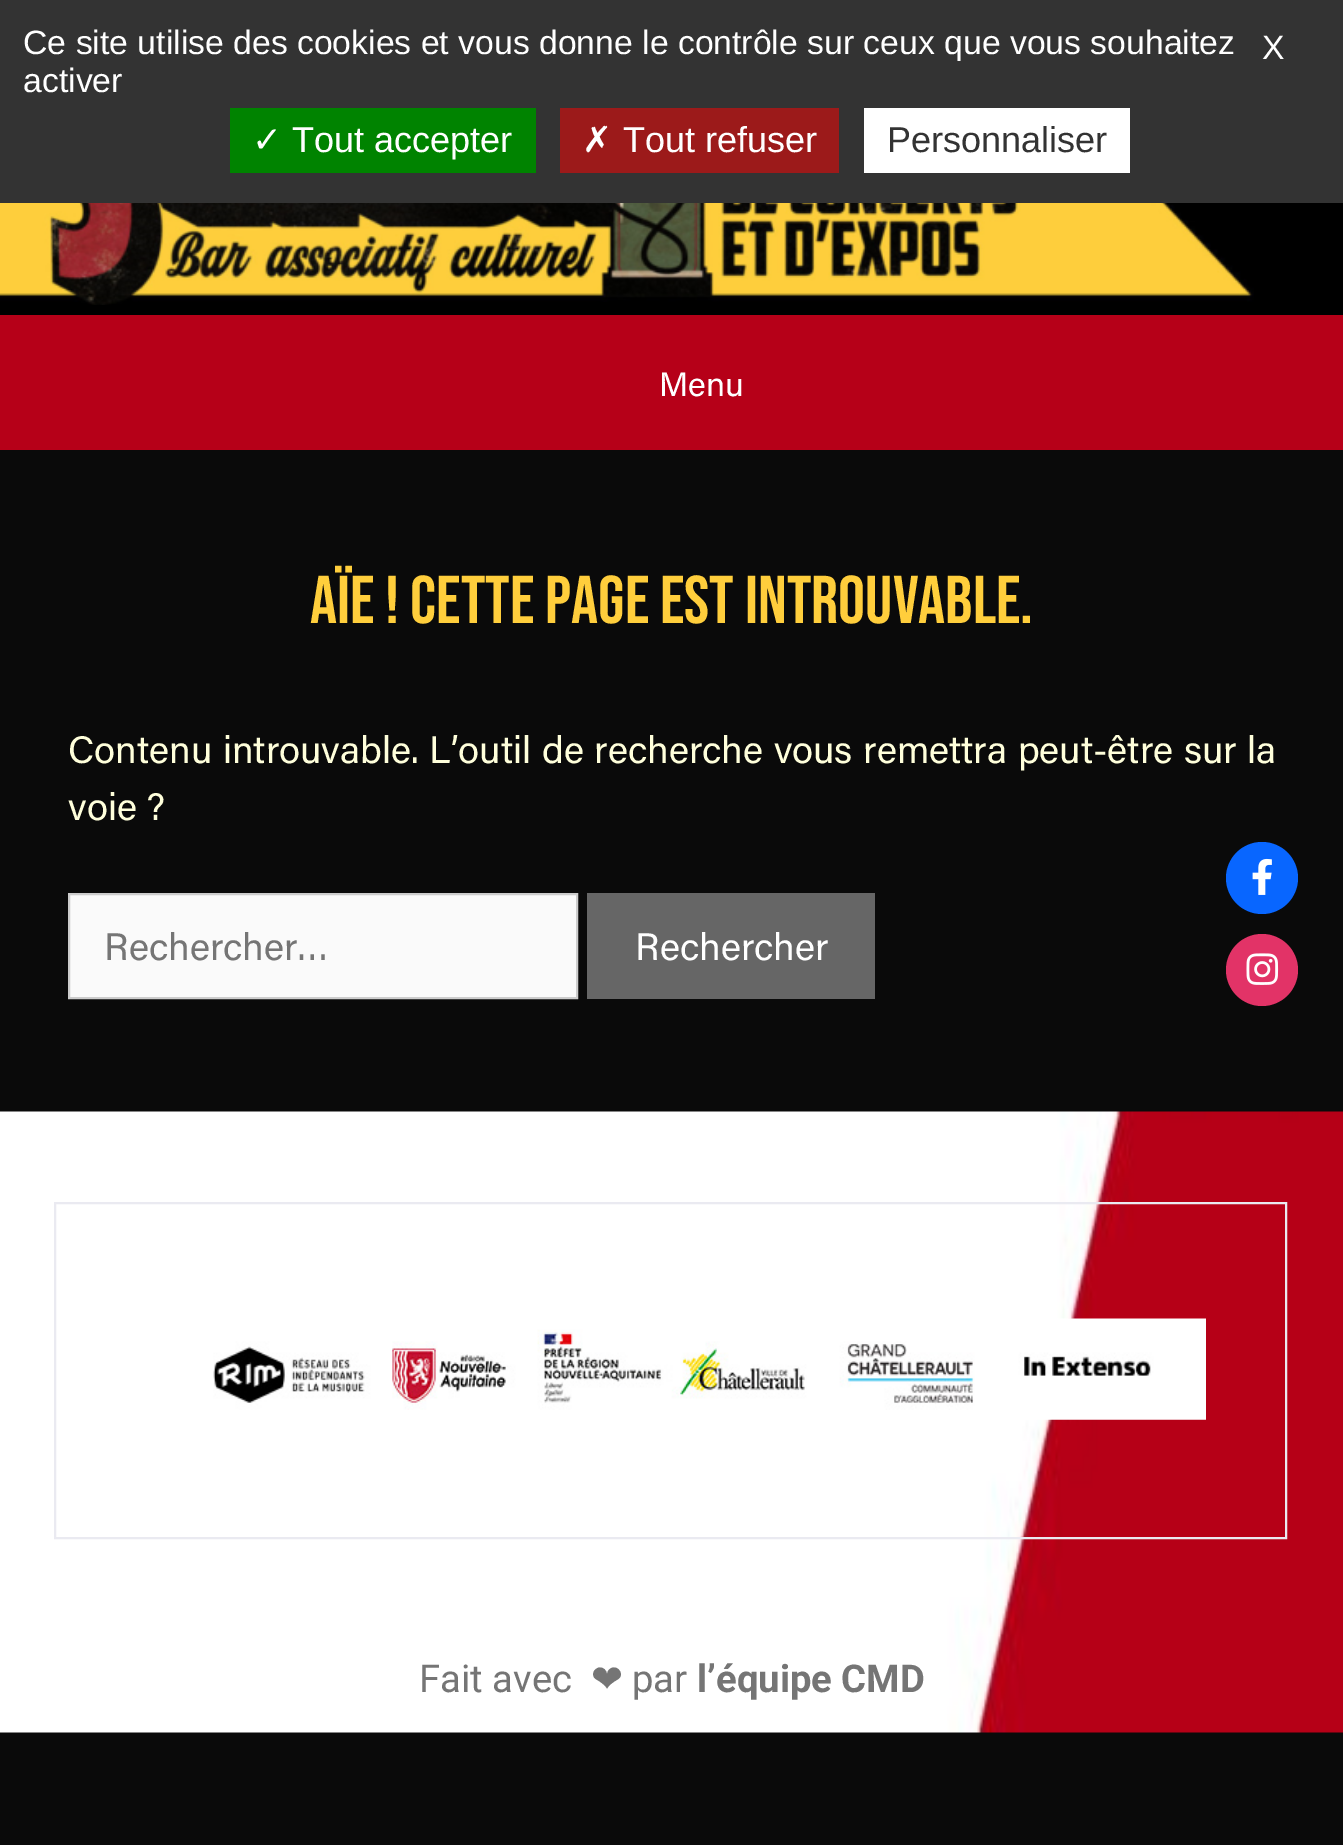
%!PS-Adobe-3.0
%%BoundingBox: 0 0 1343 1845
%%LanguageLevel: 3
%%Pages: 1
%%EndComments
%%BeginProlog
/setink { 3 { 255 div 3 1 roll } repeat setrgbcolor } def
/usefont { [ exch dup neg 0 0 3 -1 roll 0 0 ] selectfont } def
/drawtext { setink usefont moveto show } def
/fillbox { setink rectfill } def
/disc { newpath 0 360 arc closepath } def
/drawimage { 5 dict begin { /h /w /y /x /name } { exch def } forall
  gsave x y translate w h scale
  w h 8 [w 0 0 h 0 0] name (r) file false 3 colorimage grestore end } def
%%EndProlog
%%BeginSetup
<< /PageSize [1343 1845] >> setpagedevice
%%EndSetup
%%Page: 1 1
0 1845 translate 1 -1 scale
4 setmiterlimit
0 0 1343 1845 10 10 10 fillbox
0 0 1343 203 51 51 51 fillbox
(Ce site utilise des cookies et vous donne le contrôle sur ceux que vous souhaitez) 23 54 /LiberationSans-Regular 33.75 255 255 255 drawtext
(activer) 23 92 /LiberationSans-Regular 33.75 255 255 255 drawtext
(X) 1262 59 /LiberationSans-Regular 33.75 255 255 255 drawtext
230 108 306 65 0 131 0 fillbox
(✓) 252 152 /DejaVuSans-Regular 36 255 255 255 drawtext
(Tout accepter) 292 152 /LiberationSans-Regular 36 255 255 255 drawtext
560 108 279 65 156 26 26 fillbox
(✗) 582 152 /DejaVuSans-Regular 36 255 255 255 drawtext
(Tout refuser) 623 152 /LiberationSans-Regular 36 255 255 255 drawtext
864 108 266 65 255 255 255 fillbox
(Personnaliser) 887 152 /LiberationSans-Regular 36 51 51 51 drawtext
0 203 1343 112 0 0 0 fillbox
(assets/img1.rgb) 0 203 1254 102 drawimage
0 315 1343 135 182 0 24 fillbox
(Menu) 659 396 /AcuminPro-Regular 33.75 255 255 255 drawtext
(Aïe ! Cette page est introuvable.) 310 623 /BebasNeue-Regular 67.5 255 206 60 drawtext
/AcuminPro-Regular 38.25 usefont
255 255 219 setink
68 763 moveto 0.9 0 32 (Contenu introuvable. L’outil de recherche vous remettra peut-être sur la) widthshow
(voie ?) 68 820 /AcuminPro-Regular 38.25 255 255 219 drawtext
250 250 250 setink
69 894 moveto 577 894 lineto 577 998 lineto 69 998 lineto closepath gsave fill grestore
204 204 204 setink
2 setlinewidth
stroke
(Rechercher…) 104 960 /AcuminPro-Regular 38.25 117 117 117 drawtext
587 893 288 106 102 102 102 fillbox
(Rechercher) 635 960 /AcuminPro-Regular 38.25 255 255 255 drawtext
8 102 255 setink
1262 878 36 disc fill
(assets/img2.rgb) 1252 858 20 37 drawimage
226 51 103 setink
1262 970 36 disc fill
(assets/img3.rgb) 1246 953 33 32 drawimage
(assets/img4.rgb) 0 1111 1343 622 drawimage
234 234 241 setink
55 1203 1231 335 rectstroke
(assets/img5.rgb) 213 1318 993 102 drawimage
(Fait avec) 419 1692 /Roboto-Regular 38.25 117 117 117 drawtext
(❤) 591 1692 /DejaVuSans-Regular 38.25 117 117 117 drawtext
(par) 632 1692 /Roboto-Regular 38.25 117 117 117 drawtext
(l’équipe CMD) 697 1692 /Roboto-Bold 38.25 117 117 117 drawtext
showpage
%%EOF
